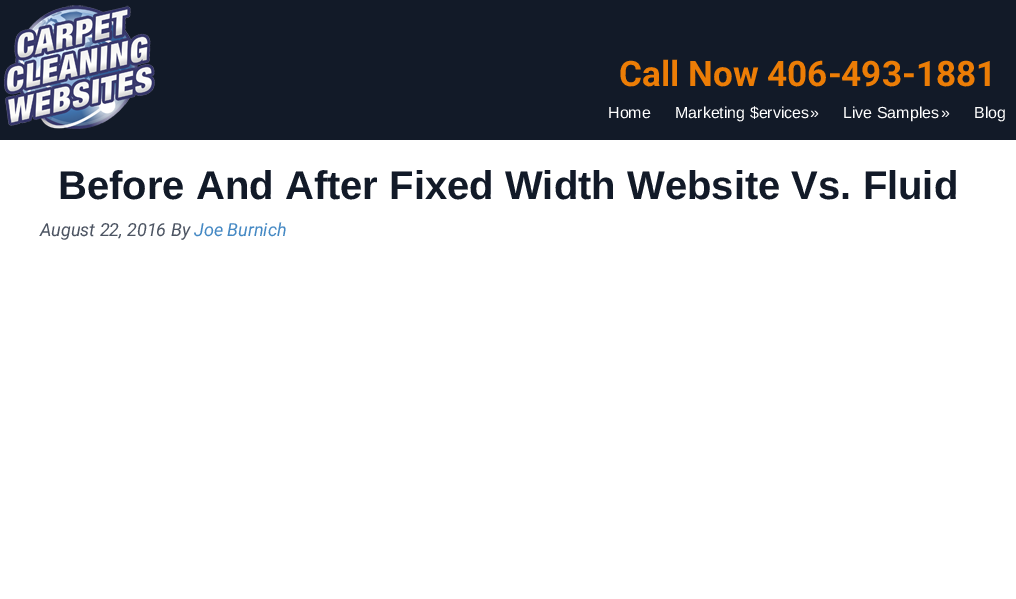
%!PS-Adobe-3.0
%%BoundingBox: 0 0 1016 599
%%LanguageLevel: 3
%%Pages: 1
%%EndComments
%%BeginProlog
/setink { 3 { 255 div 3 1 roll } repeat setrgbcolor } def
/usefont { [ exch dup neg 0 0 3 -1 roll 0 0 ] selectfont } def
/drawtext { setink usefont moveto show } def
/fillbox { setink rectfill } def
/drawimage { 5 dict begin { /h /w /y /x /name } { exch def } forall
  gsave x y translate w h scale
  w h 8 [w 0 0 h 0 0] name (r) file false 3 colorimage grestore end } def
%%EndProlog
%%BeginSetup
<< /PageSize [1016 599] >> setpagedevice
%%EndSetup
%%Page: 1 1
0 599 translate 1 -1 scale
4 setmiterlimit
0 0 1016 599 255 255 255 fillbox
0 0 1016 140 18 26 40 fillbox
(assets/img1.rgb) 4 5 151 124 drawimage
(Call Now 406-493-1881) 619 86 /Roboto-Bold 35.1 236 125 6 drawtext
(Home) 608 118 /LiberationSans-Regular 16 255 255 255 drawtext
(Marketing $ervices) 675 118 /LiberationSans-Regular 16 255 255 255 drawtext
(») 810 118 /LiberationSans-Regular 16 255 255 255 drawtext
(Live Samples) 843 118 /LiberationSans-Regular 16 255 255 255 drawtext
(») 941 118 /LiberationSans-Regular 16 255 255 255 drawtext
(Blog) 974 118 /LiberationSans-Regular 16 255 255 255 drawtext
(Before And After Fixed Width Website Vs. Fluid) 58 199 /LiberationSans-Bold 40 18 26 40 drawtext
(August 22, 2016 By) 40 236 /Roboto-Italic 18 76 84 98 drawtext
(Joe Burnich) 194 236 /Roboto-Italic 18 69 137 196 drawtext
showpage
%%EOF
